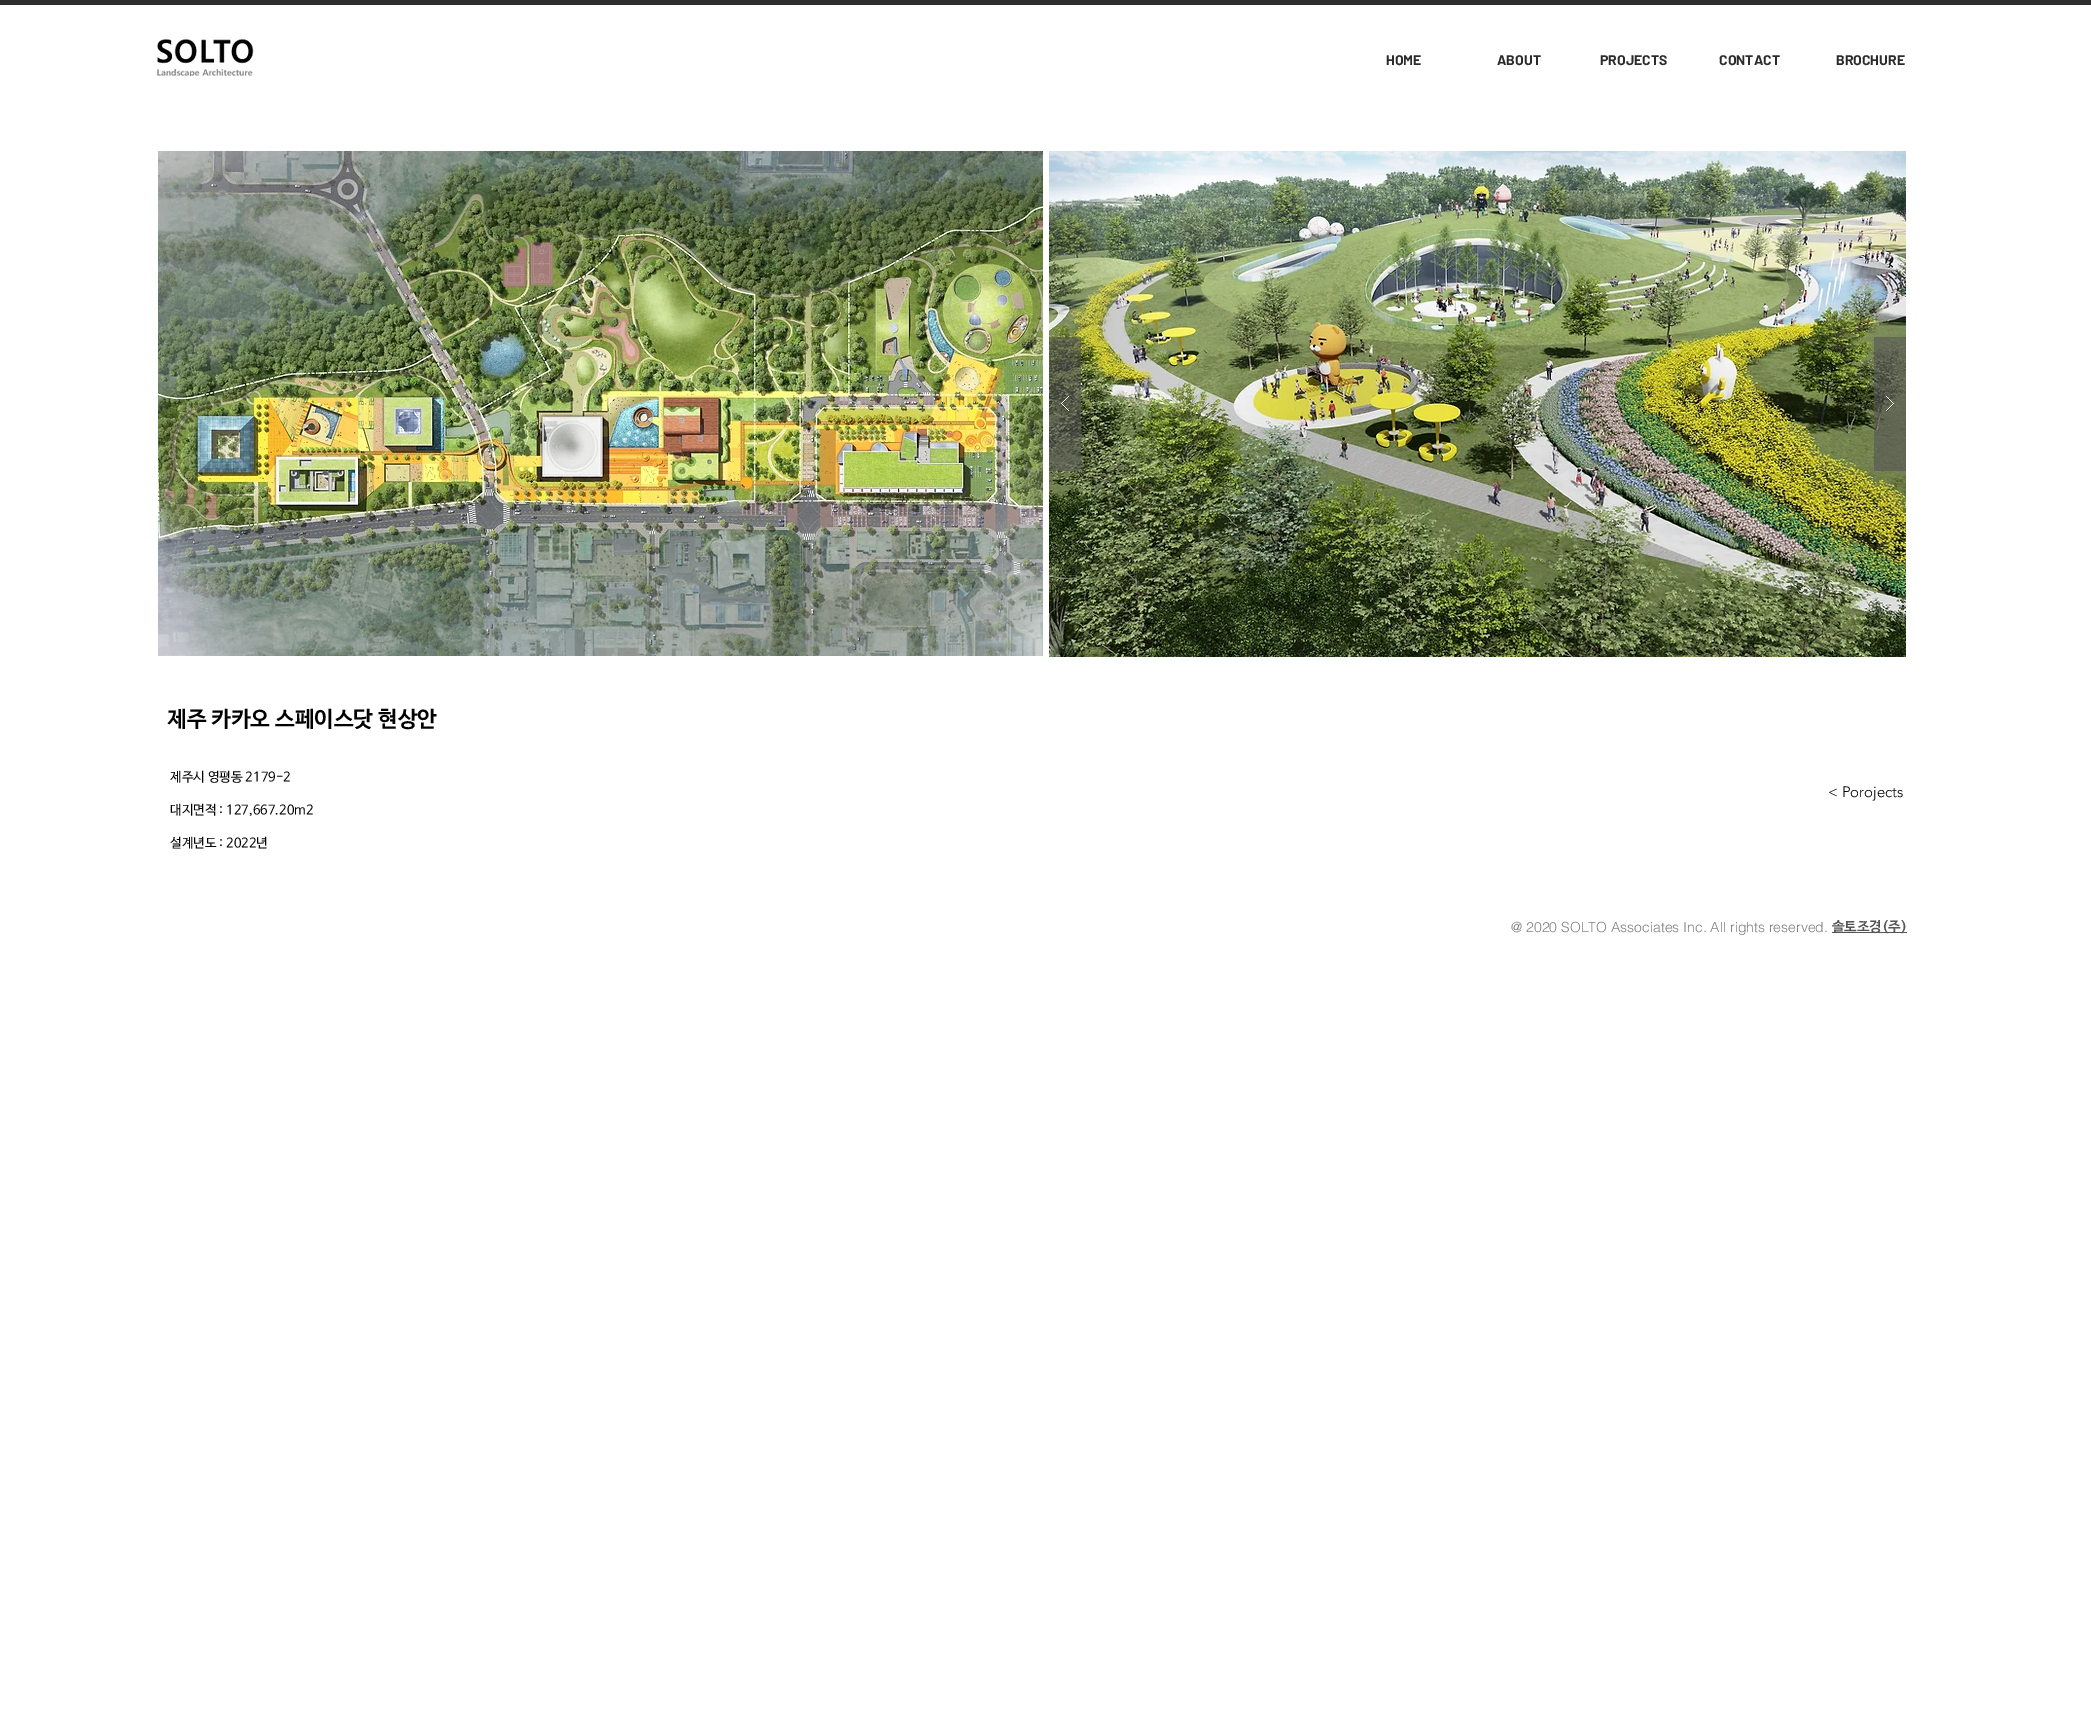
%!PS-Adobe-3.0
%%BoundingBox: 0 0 2091 1720
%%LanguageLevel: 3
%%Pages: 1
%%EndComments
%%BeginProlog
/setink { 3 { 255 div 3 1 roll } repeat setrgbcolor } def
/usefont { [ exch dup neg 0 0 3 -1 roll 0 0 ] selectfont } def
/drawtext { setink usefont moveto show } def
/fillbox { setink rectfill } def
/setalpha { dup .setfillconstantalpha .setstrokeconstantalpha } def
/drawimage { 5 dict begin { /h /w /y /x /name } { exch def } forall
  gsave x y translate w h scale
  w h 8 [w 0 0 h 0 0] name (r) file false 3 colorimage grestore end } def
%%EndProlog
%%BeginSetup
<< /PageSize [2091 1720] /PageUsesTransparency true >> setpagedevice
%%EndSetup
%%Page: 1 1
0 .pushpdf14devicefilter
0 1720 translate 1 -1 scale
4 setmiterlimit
0 0 2091 1720 255 255 255 fillbox
0 0 2091 5 47 46 46 fillbox
(HOME) 1386 65 /Barlow-Bold 14 43 43 43 drawtext
(ABOUT) 1497 65 /Barlow-Bold 14 43 43 43 drawtext
(PROJECTS) 1600 65 /Barlow-Bold 14 43 43 43 drawtext
(CONTACT) 1719 65 /Barlow-Bold 14 43 43 43 drawtext
(BROCHURE) 1836 65 /Barlow-Bold 14 43 43 43 drawtext
(assets/img1.rgb) 157 37 97 39 drawimage
(assets/img2.rgb) 158 151 885 505 drawimage
(assets/img3.rgb) 1049 151 857 506 drawimage
0.6 setalpha
1049 337 32 134 85 85 85 fillbox
1 setalpha
(assets/img4.rgb) 1061 396 8 16 drawimage
0.6 setalpha
1874 337 32 134 85 85 85 fillbox
1 setalpha
(assets/img5.rgb) 1886 396 8 16 drawimage
(제주 카카오 스페이스닷 현상안) 167 726 /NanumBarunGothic-Bold 22 0 0 0 drawtext
(제주시 영평동 2179-2) 170 781 /NanumBarunGothic-Regular 13 0 0 0 drawtext
(대지면적 : 127,667.20m2) 170 814 /NanumBarunGothic-Regular 13 0 0 0 drawtext
(설계년도 : 2022년) 170 847 /NanumBarunGothic-Regular 13 0 0 0 drawtext
(< Porojects) 1828 797 /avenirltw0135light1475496-Light 15 0 0 0 drawtext
(@ 2020 SOLTO Associates Inc. All rights reserved.) 1511 932 /helvetica-Light 14 128 128 128 drawtext
1832 932 75 1 85 85 85 fillbox
(솔토조경\(주\)) 1832 931 /NanumBarunGothic-Bold 14 85 85 85 drawtext
.poppdf14devicefilter showpage
%%EOF
